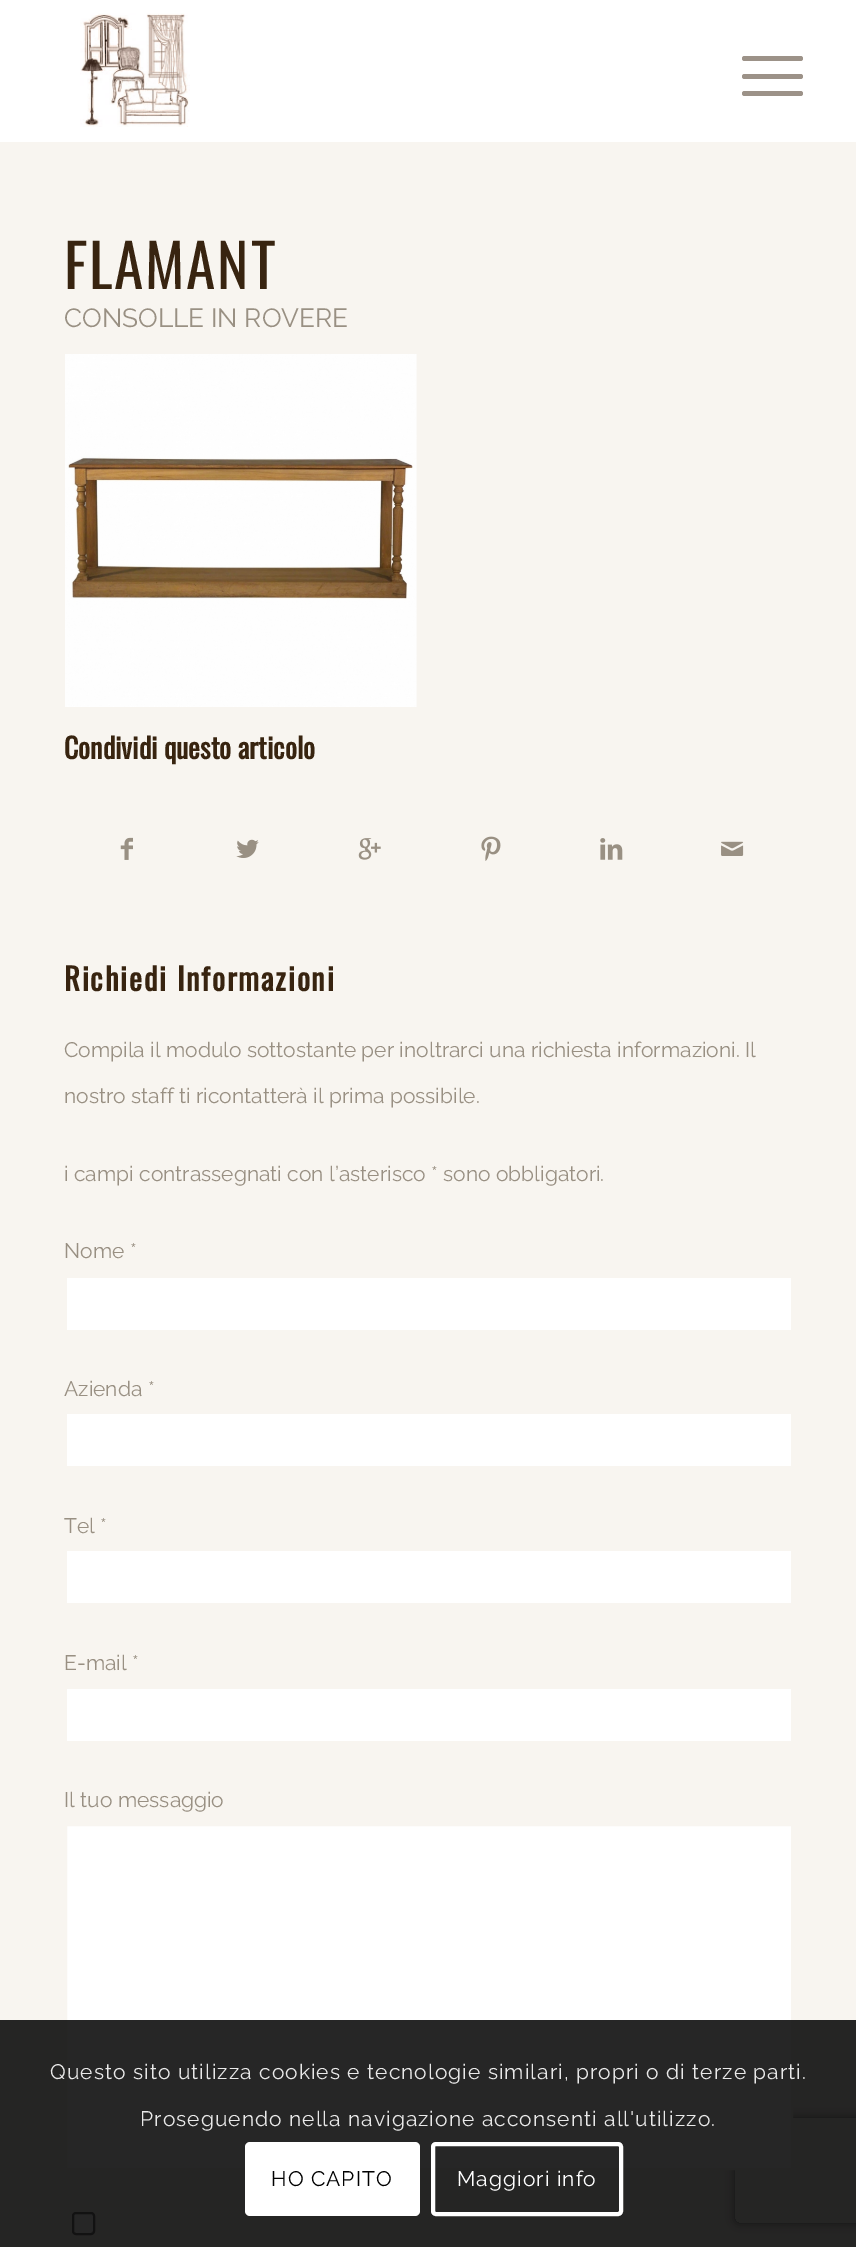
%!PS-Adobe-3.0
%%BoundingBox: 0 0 856 2247
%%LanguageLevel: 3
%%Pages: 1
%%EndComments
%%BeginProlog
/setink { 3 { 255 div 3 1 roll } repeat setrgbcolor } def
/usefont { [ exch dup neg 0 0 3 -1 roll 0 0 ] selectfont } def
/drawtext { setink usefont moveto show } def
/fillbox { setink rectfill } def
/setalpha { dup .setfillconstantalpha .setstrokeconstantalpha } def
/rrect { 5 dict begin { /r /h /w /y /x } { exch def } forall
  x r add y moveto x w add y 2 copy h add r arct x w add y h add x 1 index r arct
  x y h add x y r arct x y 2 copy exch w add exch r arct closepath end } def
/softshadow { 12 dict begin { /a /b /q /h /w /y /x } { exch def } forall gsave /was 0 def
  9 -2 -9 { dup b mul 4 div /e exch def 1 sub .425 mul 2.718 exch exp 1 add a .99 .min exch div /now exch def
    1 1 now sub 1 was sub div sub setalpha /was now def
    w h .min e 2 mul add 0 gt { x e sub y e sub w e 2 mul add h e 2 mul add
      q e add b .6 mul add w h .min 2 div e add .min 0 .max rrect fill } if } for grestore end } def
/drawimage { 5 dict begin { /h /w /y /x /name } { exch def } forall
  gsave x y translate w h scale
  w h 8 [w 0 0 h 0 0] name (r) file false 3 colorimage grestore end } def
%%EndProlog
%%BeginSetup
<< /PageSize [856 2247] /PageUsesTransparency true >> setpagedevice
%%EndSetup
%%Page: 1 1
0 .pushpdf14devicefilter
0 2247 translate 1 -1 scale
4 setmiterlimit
0 0 856 2247 255 255 255 fillbox
(assets/img1.rgb) 80 13 110 114 drawimage
156 146 136 setink
742 74 61 5 2.5 rrect fill
742 56 61 5 2.5 rrect fill
742 91 61 5 2.5 rrect fill
0 142 856 2105 248 245 240 fillbox
/Oswald-Regular 59.5 usefont
56 36 16 setink
64 289 moveto 1.75 0 (FLAMANT) ashow
(CONSOLLE IN ROVERE) 64 327 /Raleway-Thin 26.25 153 144 131 drawtext
(assets/img2.rgb) 65 354 352 353 drawimage
(Condividi questo articolo) 64 759 /Oswald-Bold 28 56 36 16 drawtext
(assets/img3.rgb) 120 837 13 23 drawimage
(assets/img4.rgb) 236 839 23 19 drawimage
(assets/img5.rgb) 358 838 23 22 drawimage
(assets/img6.rgb) 481 836 20 25 drawimage
(assets/img7.rgb) 600 838 23 22 drawimage
(assets/img8.rgb) 721 841 23 15 drawimage
/Oswald-Bold 30.75 usefont
64 991 moveto 1.75 0 (Richiedi Informazioni) ashow
(Compila il modulo sottostante per inoltrarci una richiesta informazioni. Il) 64 1057 /Raleway-Thin 21 153 144 131 drawtext
(nostro staff ti ricontatterà il prima possibile.) 64 1103 /Raleway-Thin 21 153 144 131 drawtext
(i campi contrassegnati con l’asterisco * sono obbligatori.) 64 1181 /Raleway-Thin 21 153 144 131 drawtext
(Nome *) 64 1258 /Raleway-Thin 21 153 144 131 drawtext
67 1278 724 52 255 255 255 fillbox
(Azienda *) 64 1396 /Raleway-Thin 21 153 144 131 drawtext
67 1414 724 52 255 255 255 fillbox
(Tel *) 64 1533 /Raleway-Thin 21 153 144 131 drawtext
67 1551 724 52 255 255 255 fillbox
(E-mail *) 64 1670 /Raleway-Thin 21 153 144 131 drawtext
67 1689 724 52 255 255 255 fillbox
(Il tuo messaggio) 64 1807 /Raleway-Thin 21 153 144 131 drawtext
gsave
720 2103 moveto 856 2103 lineto 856 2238 lineto 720 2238 lineto closepath 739 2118 moveto 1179 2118 lineto 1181 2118 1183 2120 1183 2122 curveto 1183 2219 lineto 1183 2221 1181 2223 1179 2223 curveto 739 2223 lineto 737 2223 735 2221 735 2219 curveto 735 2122 lineto 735 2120 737 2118 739 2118 curveto closepath eoclip newpath
128 128 128 setink
735 2118 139 105 4 4.5 1 softshadow
grestore
255 255 255 setink
66 1825 moveto 792 1825 lineto 792 2169 lineto 66 2169 lineto closepath gsave fill grestore
248 245 240 setink
2 setlinewidth
stroke
255 255 255 setink
73 2213 21 21 3 rrect gsave fill grestore
118 118 118 setink
stroke
0.85 setalpha
0 2020 856 227 0 0 0 fillbox
1 setalpha
233 233 233 setink
50 2079 moveto 1.05 0 (Questo sito utilizza cookies e tecnologie similari, propri o di terze parti.) ashow
140 2126 moveto 1.05 0 (Proseguendo nella navigazione acconsenti all'utilizzo.) ashow
255 255 255 setink
245 2142 175 74 5 rrect fill
0 0 0 setink
271 2186 moveto 1.05 0 (HO CAPITO) ashow
255 255 255 setink
4 setlinewidth
433 2144 188 70 3 rrect stroke
457 2186 moveto 1.05 0 (Maggiori info) ashow
.poppdf14devicefilter showpage
%%EOF
